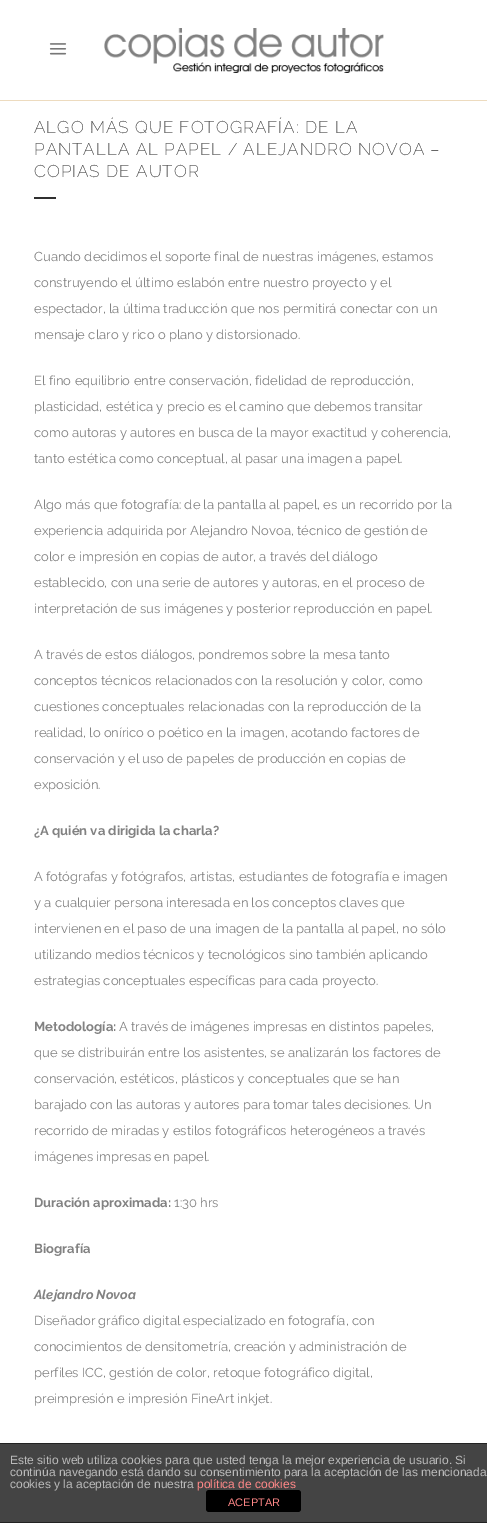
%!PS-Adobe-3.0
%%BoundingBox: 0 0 487 1523
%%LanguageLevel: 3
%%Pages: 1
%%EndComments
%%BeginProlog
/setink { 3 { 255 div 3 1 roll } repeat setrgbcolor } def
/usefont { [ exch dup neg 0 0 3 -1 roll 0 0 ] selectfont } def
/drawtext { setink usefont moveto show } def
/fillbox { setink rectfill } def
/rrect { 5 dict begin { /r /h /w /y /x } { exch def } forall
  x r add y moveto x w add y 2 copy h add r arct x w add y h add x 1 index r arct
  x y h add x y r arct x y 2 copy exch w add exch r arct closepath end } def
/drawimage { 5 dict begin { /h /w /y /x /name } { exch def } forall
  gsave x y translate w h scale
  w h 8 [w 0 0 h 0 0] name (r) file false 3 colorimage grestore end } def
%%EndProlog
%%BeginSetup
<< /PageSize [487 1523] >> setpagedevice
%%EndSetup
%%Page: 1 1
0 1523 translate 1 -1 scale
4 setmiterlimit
0 0 487 1523 255 255 255 fillbox
0 100 487 1 237 219 191 fillbox
(assets/img1.rgb) 49 43 18 12 drawimage
(assets/img2.rgb) 104 28 280 45 drawimage
/Raleway-ExtraLight 17 usefont
48 48 48 setink
34 133 moveto 1 0 (ALGO MÁS QUE FOTOGRAFÍA: DE LA) ashow
34 155 moveto 1 0 (PANTALLA AL PAPEL / ALEJANDRO NOVOA –) ashow
34 177 moveto 1 0 (COPIAS DE AUTOR) ashow
34 197 22 2 48 48 48 fillbox
(Cuando decidimos el soporte final de nuestras imágenes, estamos) 34 261 /Raleway-Regular 13 130 130 130 drawtext
(construyendo el último eslabón entre nuestro proyecto y el) 34 287 /Raleway-Regular 13 130 130 130 drawtext
(espectador, la última traducción que nos permitirá conectar con un) 34 313 /Raleway-Regular 13 130 130 130 drawtext
(mensaje claro y rico o plano y distorsionado.) 34 339 /Raleway-Regular 13 130 130 130 drawtext
(El fino equilibrio entre conservación, fidelidad de reproducción,) 34 385 /Raleway-Regular 13 130 130 130 drawtext
(plasticidad, estética y precio es el camino que debemos transitar) 34 411 /Raleway-Regular 13 130 130 130 drawtext
(como autoras y autores en busca de la mayor exactitud y coherencia,) 34 437 /Raleway-Regular 13 130 130 130 drawtext
(tanto estética como conceptual, al pasar una imagen a papel.) 34 463 /Raleway-Regular 13 130 130 130 drawtext
(Algo más que fotografía: de la pantalla al papel, es un recorrido por la) 34 509 /Raleway-Regular 13 130 130 130 drawtext
(experiencia adquirida por Alejandro Novoa, técnico de gestión de) 34 535 /Raleway-Regular 13 130 130 130 drawtext
(color e impresión en copias de autor, a través del diálogo) 34 561 /Raleway-Regular 13 130 130 130 drawtext
(establecido, con una serie de autores y autoras, en el proceso de) 34 587 /Raleway-Regular 13 130 130 130 drawtext
(interpretación de sus imágenes y posterior reproducción en papel.) 34 613 /Raleway-Regular 13 130 130 130 drawtext
(A través de estos diálogos, pondremos sobre la mesa tanto) 34 659 /Raleway-Regular 13 130 130 130 drawtext
(conceptos técnicos relacionados con la resolución y color, como) 34 685 /Raleway-Regular 13 130 130 130 drawtext
(cuestiones conceptuales relacionadas con la reproducción de la) 34 711 /Raleway-Regular 13 130 130 130 drawtext
(realidad, lo onírico o poético en la imagen, acotando factores de) 34 737 /Raleway-Regular 13 130 130 130 drawtext
(conservación y el uso de papeles de producción en copias de) 34 763 /Raleway-Regular 13 130 130 130 drawtext
(exposición.) 34 789 /Raleway-Regular 13 130 130 130 drawtext
(¿A quién va dirigida la charla?) 34 835 /Raleway-Bold 13 130 130 130 drawtext
(A fotógrafas y fotógrafos, artistas, estudiantes de fotografía e imagen) 34 881 /Raleway-Regular 13 130 130 130 drawtext
(y a cualquier persona interesada en los conceptos claves que) 34 907 /Raleway-Regular 13 130 130 130 drawtext
(intervienen en el paso de una imagen de la pantalla al papel, no sólo) 34 933 /Raleway-Regular 13 130 130 130 drawtext
(utilizando medios técnicos y tecnológicos sino también aplicando) 34 959 /Raleway-Regular 13 130 130 130 drawtext
(estrategias conceptuales específicas para cada proyecto.) 34 985 /Raleway-Regular 13 130 130 130 drawtext
(Metodología:) 34 1031 /Raleway-Bold 13 130 130 130 drawtext
(A través de imágenes impresas en distintos papeles,) 119 1031 /Raleway-Regular 13 130 130 130 drawtext
(que se distribuirán entre los asistentes, se analizarán los factores de) 34 1057 /Raleway-Regular 13 130 130 130 drawtext
(conservación, estéticos, plásticos y conceptuales que se han) 34 1083 /Raleway-Regular 13 130 130 130 drawtext
(barajado con las autoras y autores para tomar tales decisiones. Un) 34 1109 /Raleway-Regular 13 130 130 130 drawtext
(recorrido de miradas y estilos fotográficos heterogéneos a través) 34 1135 /Raleway-Regular 13 130 130 130 drawtext
(imágenes impresas en papel.) 34 1161 /Raleway-Regular 13 130 130 130 drawtext
(Duración aproximada:) 34 1207 /Raleway-Bold 13 130 130 130 drawtext
(1:30 hrs) 174 1207 /Raleway-Regular 13 130 130 130 drawtext
(Biografía) 34 1253 /Raleway-Bold 13 130 130 130 drawtext
(Alejandro Novoa) 34 1299 /Raleway-BoldItalic 13 130 130 130 drawtext
(Diseñador gráfico digital especializado en fotografía, con) 34 1325 /Raleway-Regular 13 130 130 130 drawtext
(conocimientos de densitometría, creación y administración de) 34 1351 /Raleway-Regular 13 130 130 130 drawtext
(perfiles ICC, gestión de color, retoque fotográfico digital,) 34 1377 /Raleway-Regular 13 130 130 130 drawtext
(preimpresión e impresión FineArt inkjet.) 34 1403 /Raleway-Regular 13 130 130 130 drawtext
0 1444 487 78 68 68 68 fillbox
0 1443 487 1 34 34 34 fillbox
0 1522 487 1 34 34 34 fillbox
(Este sitio web utiliza cookies para que usted tenga la mejor experiencia de usuario. Si) 10 1464 /LiberationSans-Regular 12 187 187 187 drawtext
(continúa navegando está dando su consentimiento para la aceptación de las mencionada) 10 1476 /LiberationSans-Regular 12 187 187 187 drawtext
(cookies y la aceptación de nuestra) 10 1488 /LiberationSans-Regular 12 187 187 187 drawtext
0 0 0 setink
206 1490 95 22 3 rrect fill
(política de cookies) 197 1488 /LiberationSans-Regular 12 255 136 136 drawtext
(ACEPTAR) 228 1506 /LiberationSans-Regular 11 255 136 136 drawtext
showpage
%%EOF
